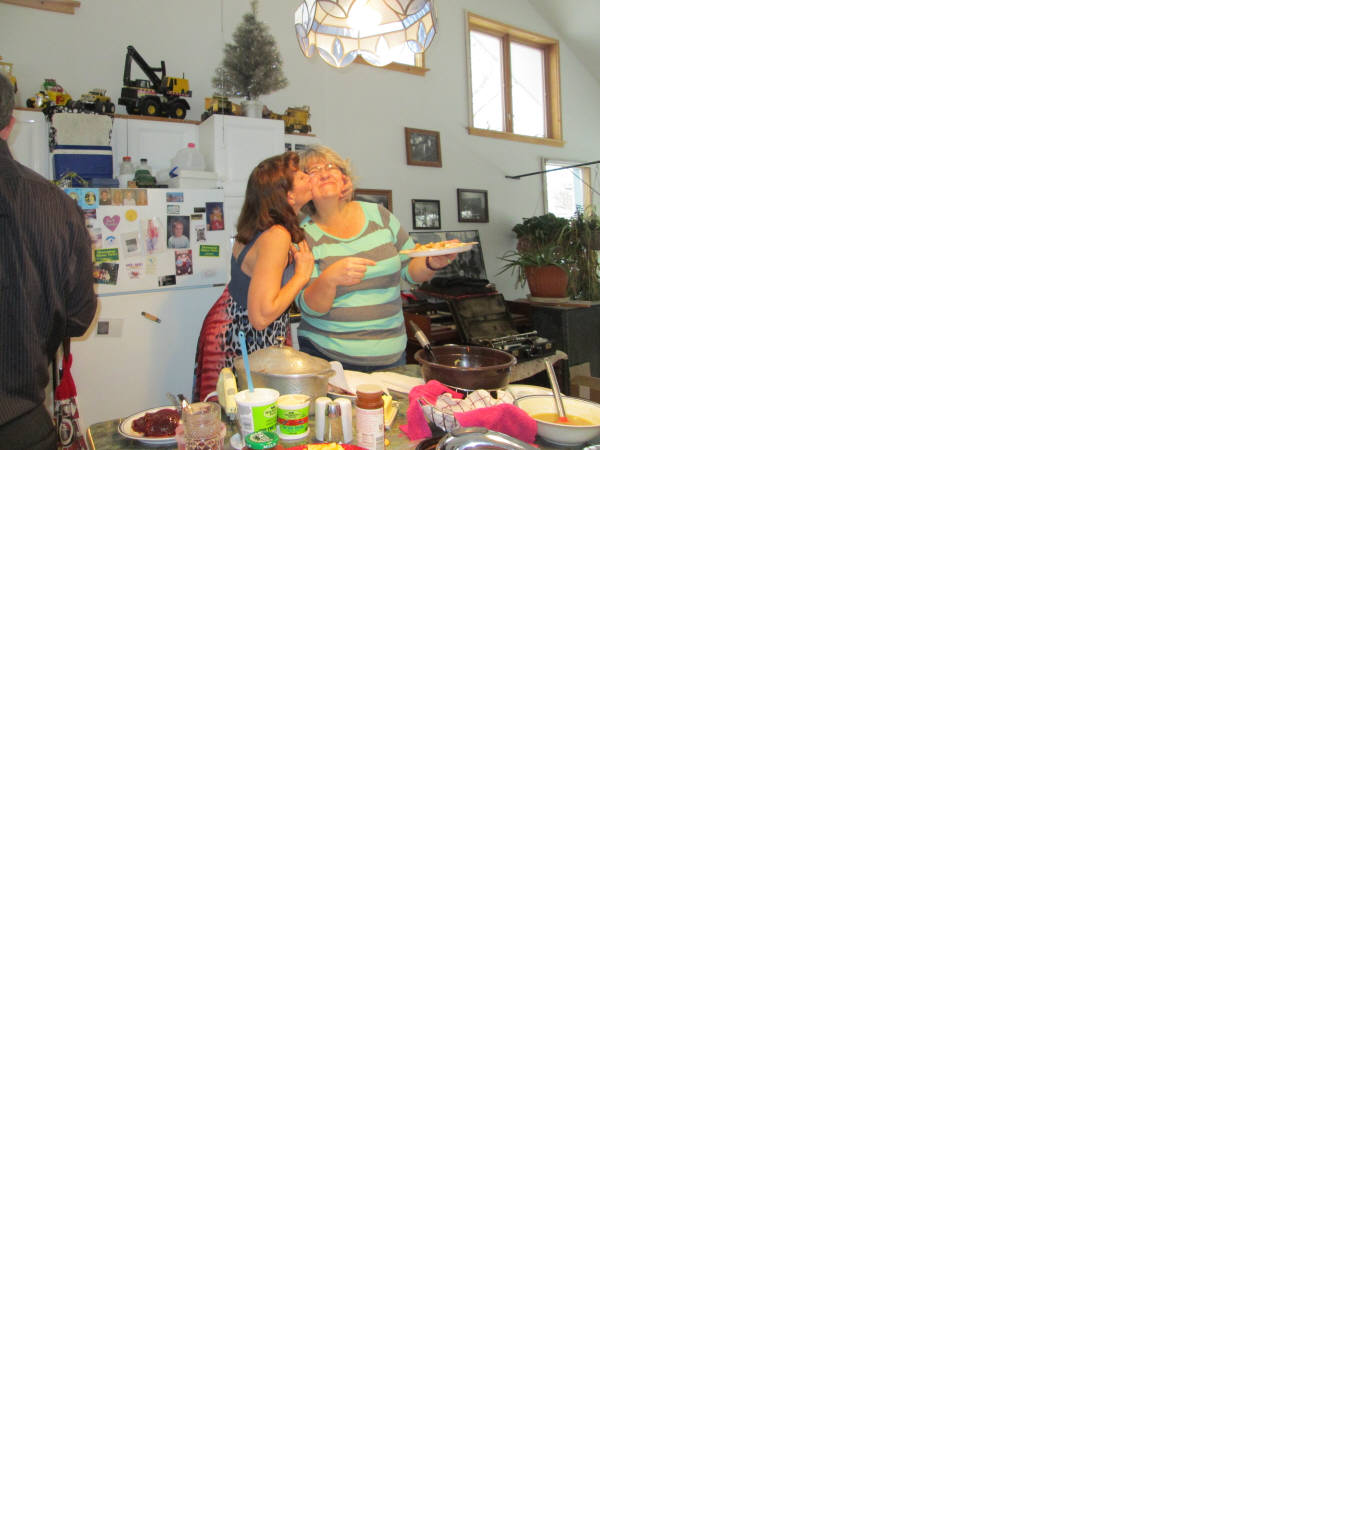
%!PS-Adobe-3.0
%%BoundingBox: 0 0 1346 1520
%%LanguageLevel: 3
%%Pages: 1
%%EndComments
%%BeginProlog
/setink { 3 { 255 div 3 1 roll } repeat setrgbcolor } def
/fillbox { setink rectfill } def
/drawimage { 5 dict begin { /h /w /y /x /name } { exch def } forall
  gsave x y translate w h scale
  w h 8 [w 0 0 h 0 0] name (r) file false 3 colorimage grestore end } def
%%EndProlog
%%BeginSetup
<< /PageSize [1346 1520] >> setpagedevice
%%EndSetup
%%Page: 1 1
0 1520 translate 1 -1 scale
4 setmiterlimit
0 0 1346 1520 255 255 255 fillbox
(assets/img1.rgb) 0 0 600 450 drawimage
showpage
%%EOF
